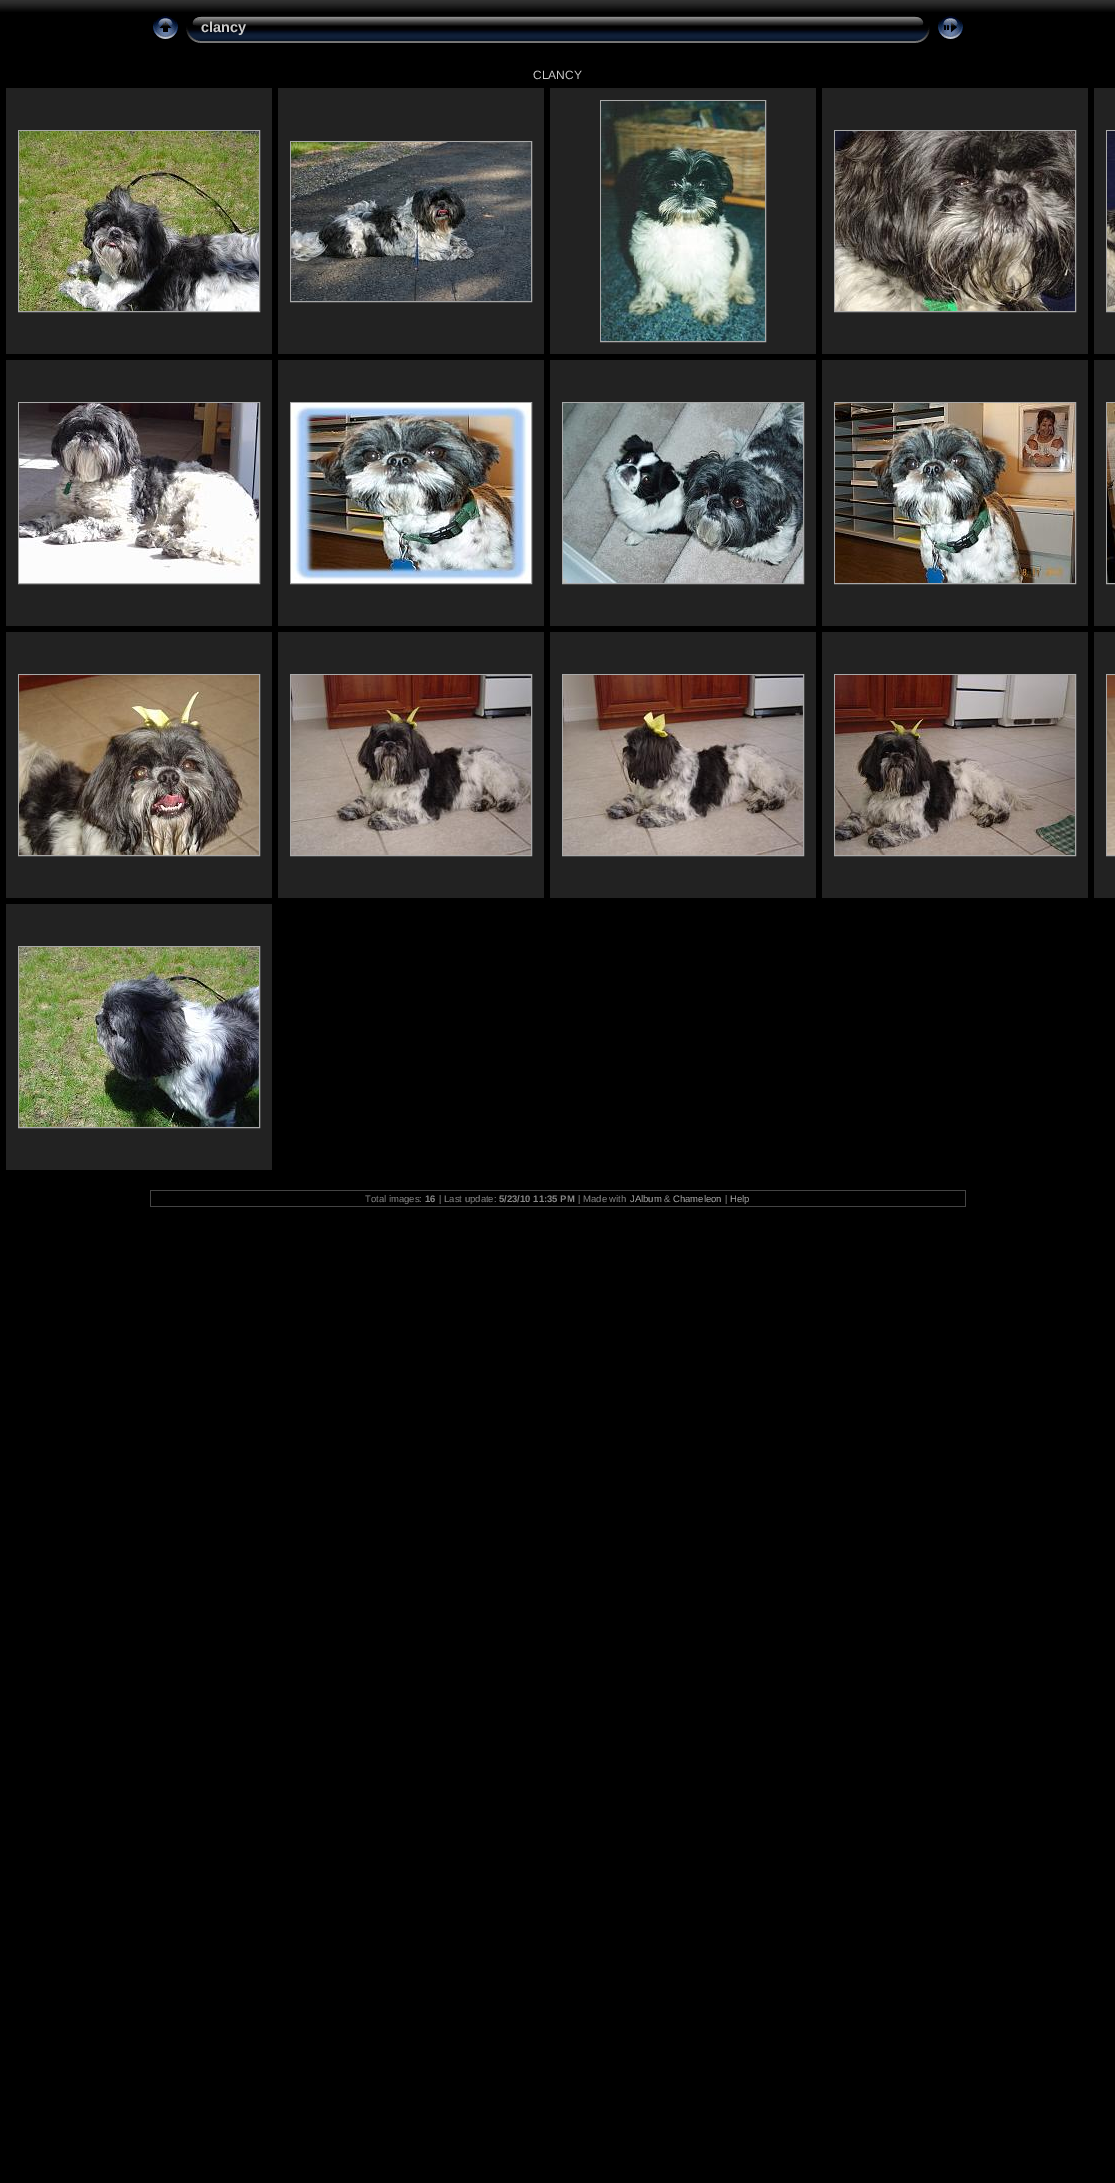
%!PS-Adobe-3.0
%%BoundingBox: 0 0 1115 2183
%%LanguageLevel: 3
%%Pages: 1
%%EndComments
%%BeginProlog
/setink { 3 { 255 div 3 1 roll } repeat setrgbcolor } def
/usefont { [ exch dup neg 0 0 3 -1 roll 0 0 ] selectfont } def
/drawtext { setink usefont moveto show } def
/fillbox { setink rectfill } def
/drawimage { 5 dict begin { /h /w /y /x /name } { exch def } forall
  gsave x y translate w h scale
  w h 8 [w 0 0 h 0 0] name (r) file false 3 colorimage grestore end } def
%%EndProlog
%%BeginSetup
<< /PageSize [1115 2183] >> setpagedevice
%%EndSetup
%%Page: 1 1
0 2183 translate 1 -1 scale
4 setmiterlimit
0 0 1115 2183 0 0 0 fillbox
(assets/img1.rgb) 0 0 1115 12 drawimage
(assets/img2.rgb) 153 16 25 23 drawimage
(assets/img3.rgb) 186 16 15 27 drawimage
(assets/img4.rgb) 201 16 714 27 drawimage
(clancy) 201 32 /LiberationSans-Bold 14.5 204 204 204 drawtext
(assets/img5.rgb) 915 16 15 27 drawimage
(assets/img6.rgb) 938 16 25 23 drawimage
(CLANCY) 533 79 /LiberationSans-Regular 12 204 204 204 drawtext
6 88 266 266 34 34 34 fillbox
170 170 170 setink
18.5 130.5 241 181 rectstroke
(assets/img7.rgb) 19 131 240 180 drawimage
278 88 266 266 34 34 34 fillbox
170 170 170 setink
290.5 141.5 241 160 rectstroke
(assets/img8.rgb) 291 142 240 159 drawimage
550 88 266 266 34 34 34 fillbox
170 170 170 setink
600.5 100.5 165 241 rectstroke
(assets/img9.rgb) 601 101 164 240 drawimage
822 88 266 266 34 34 34 fillbox
170 170 170 setink
834.5 130.5 241 181 rectstroke
(assets/img10.rgb) 835 131 240 180 drawimage
1094 88 21 266 34 34 34 fillbox
170 170 170 setink
1106.5 130.5 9 181 rectstroke
(assets/img11.rgb) 1107 131 8 180 drawimage
6 360 266 266 34 34 34 fillbox
170 170 170 setink
18.5 402.5 241 181 rectstroke
(assets/img12.rgb) 19 403 240 180 drawimage
278 360 266 266 34 34 34 fillbox
170 170 170 setink
290.5 402.5 241 181 rectstroke
(assets/img13.rgb) 291 403 240 180 drawimage
550 360 266 266 34 34 34 fillbox
170 170 170 setink
562.5 402.5 241 181 rectstroke
(assets/img14.rgb) 563 403 240 180 drawimage
822 360 266 266 34 34 34 fillbox
170 170 170 setink
834.5 402.5 241 181 rectstroke
(assets/img15.rgb) 835 403 240 180 drawimage
1094 360 21 266 34 34 34 fillbox
170 170 170 setink
1106.5 402.5 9 181 rectstroke
(assets/img16.rgb) 1107 403 8 180 drawimage
6 632 266 266 34 34 34 fillbox
170 170 170 setink
18.5 674.5 241 181 rectstroke
(assets/img17.rgb) 19 675 240 180 drawimage
278 632 266 266 34 34 34 fillbox
170 170 170 setink
290.5 674.5 241 181 rectstroke
(assets/img18.rgb) 291 675 240 180 drawimage
550 632 266 266 34 34 34 fillbox
170 170 170 setink
562.5 674.5 241 181 rectstroke
(assets/img19.rgb) 563 675 240 180 drawimage
822 632 266 266 34 34 34 fillbox
170 170 170 setink
834.5 674.5 241 181 rectstroke
(assets/img20.rgb) 835 675 240 180 drawimage
1094 632 21 266 34 34 34 fillbox
170 170 170 setink
1106.5 674.5 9 181 rectstroke
(assets/img21.rgb) 1107 675 8 180 drawimage
6 904 266 266 34 34 34 fillbox
170 170 170 setink
18.5 946.5 241 181 rectstroke
(assets/img22.rgb) 19 947 240 180 drawimage
150 1190 816 1 68 68 68 fillbox
965 1190 1 17 68 68 68 fillbox
150 1206 816 1 68 68 68 fillbox
150 1190 1 17 68 68 68 fillbox
(Total images:) 365 1202 /LiberationSans-Regular 9.5 136 136 136 drawtext
(16) 425 1202 /LiberationSans-Bold 9.5 136 136 136 drawtext
(| Last update:) 439 1202 /LiberationSans-Regular 9.5 136 136 136 drawtext
(5/23/10 11:35 PM) 499 1202 /LiberationSans-Bold 9.5 136 136 136 drawtext
(| Made with) 578 1202 /LiberationSans-Regular 9.5 136 136 136 drawtext
(JAlbum) 630 1202 /LiberationSans-Regular 9.5 170 170 170 drawtext
(&) 664 1202 /LiberationSans-Regular 9.5 136 136 136 drawtext
(Chameleon) 673 1202 /LiberationSans-Regular 9.5 170 170 170 drawtext
(|) 725 1202 /LiberationSans-Regular 9.5 136 136 136 drawtext
(Help) 730 1202 /LiberationSans-Regular 9.5 170 170 170 drawtext
showpage
%%EOF
